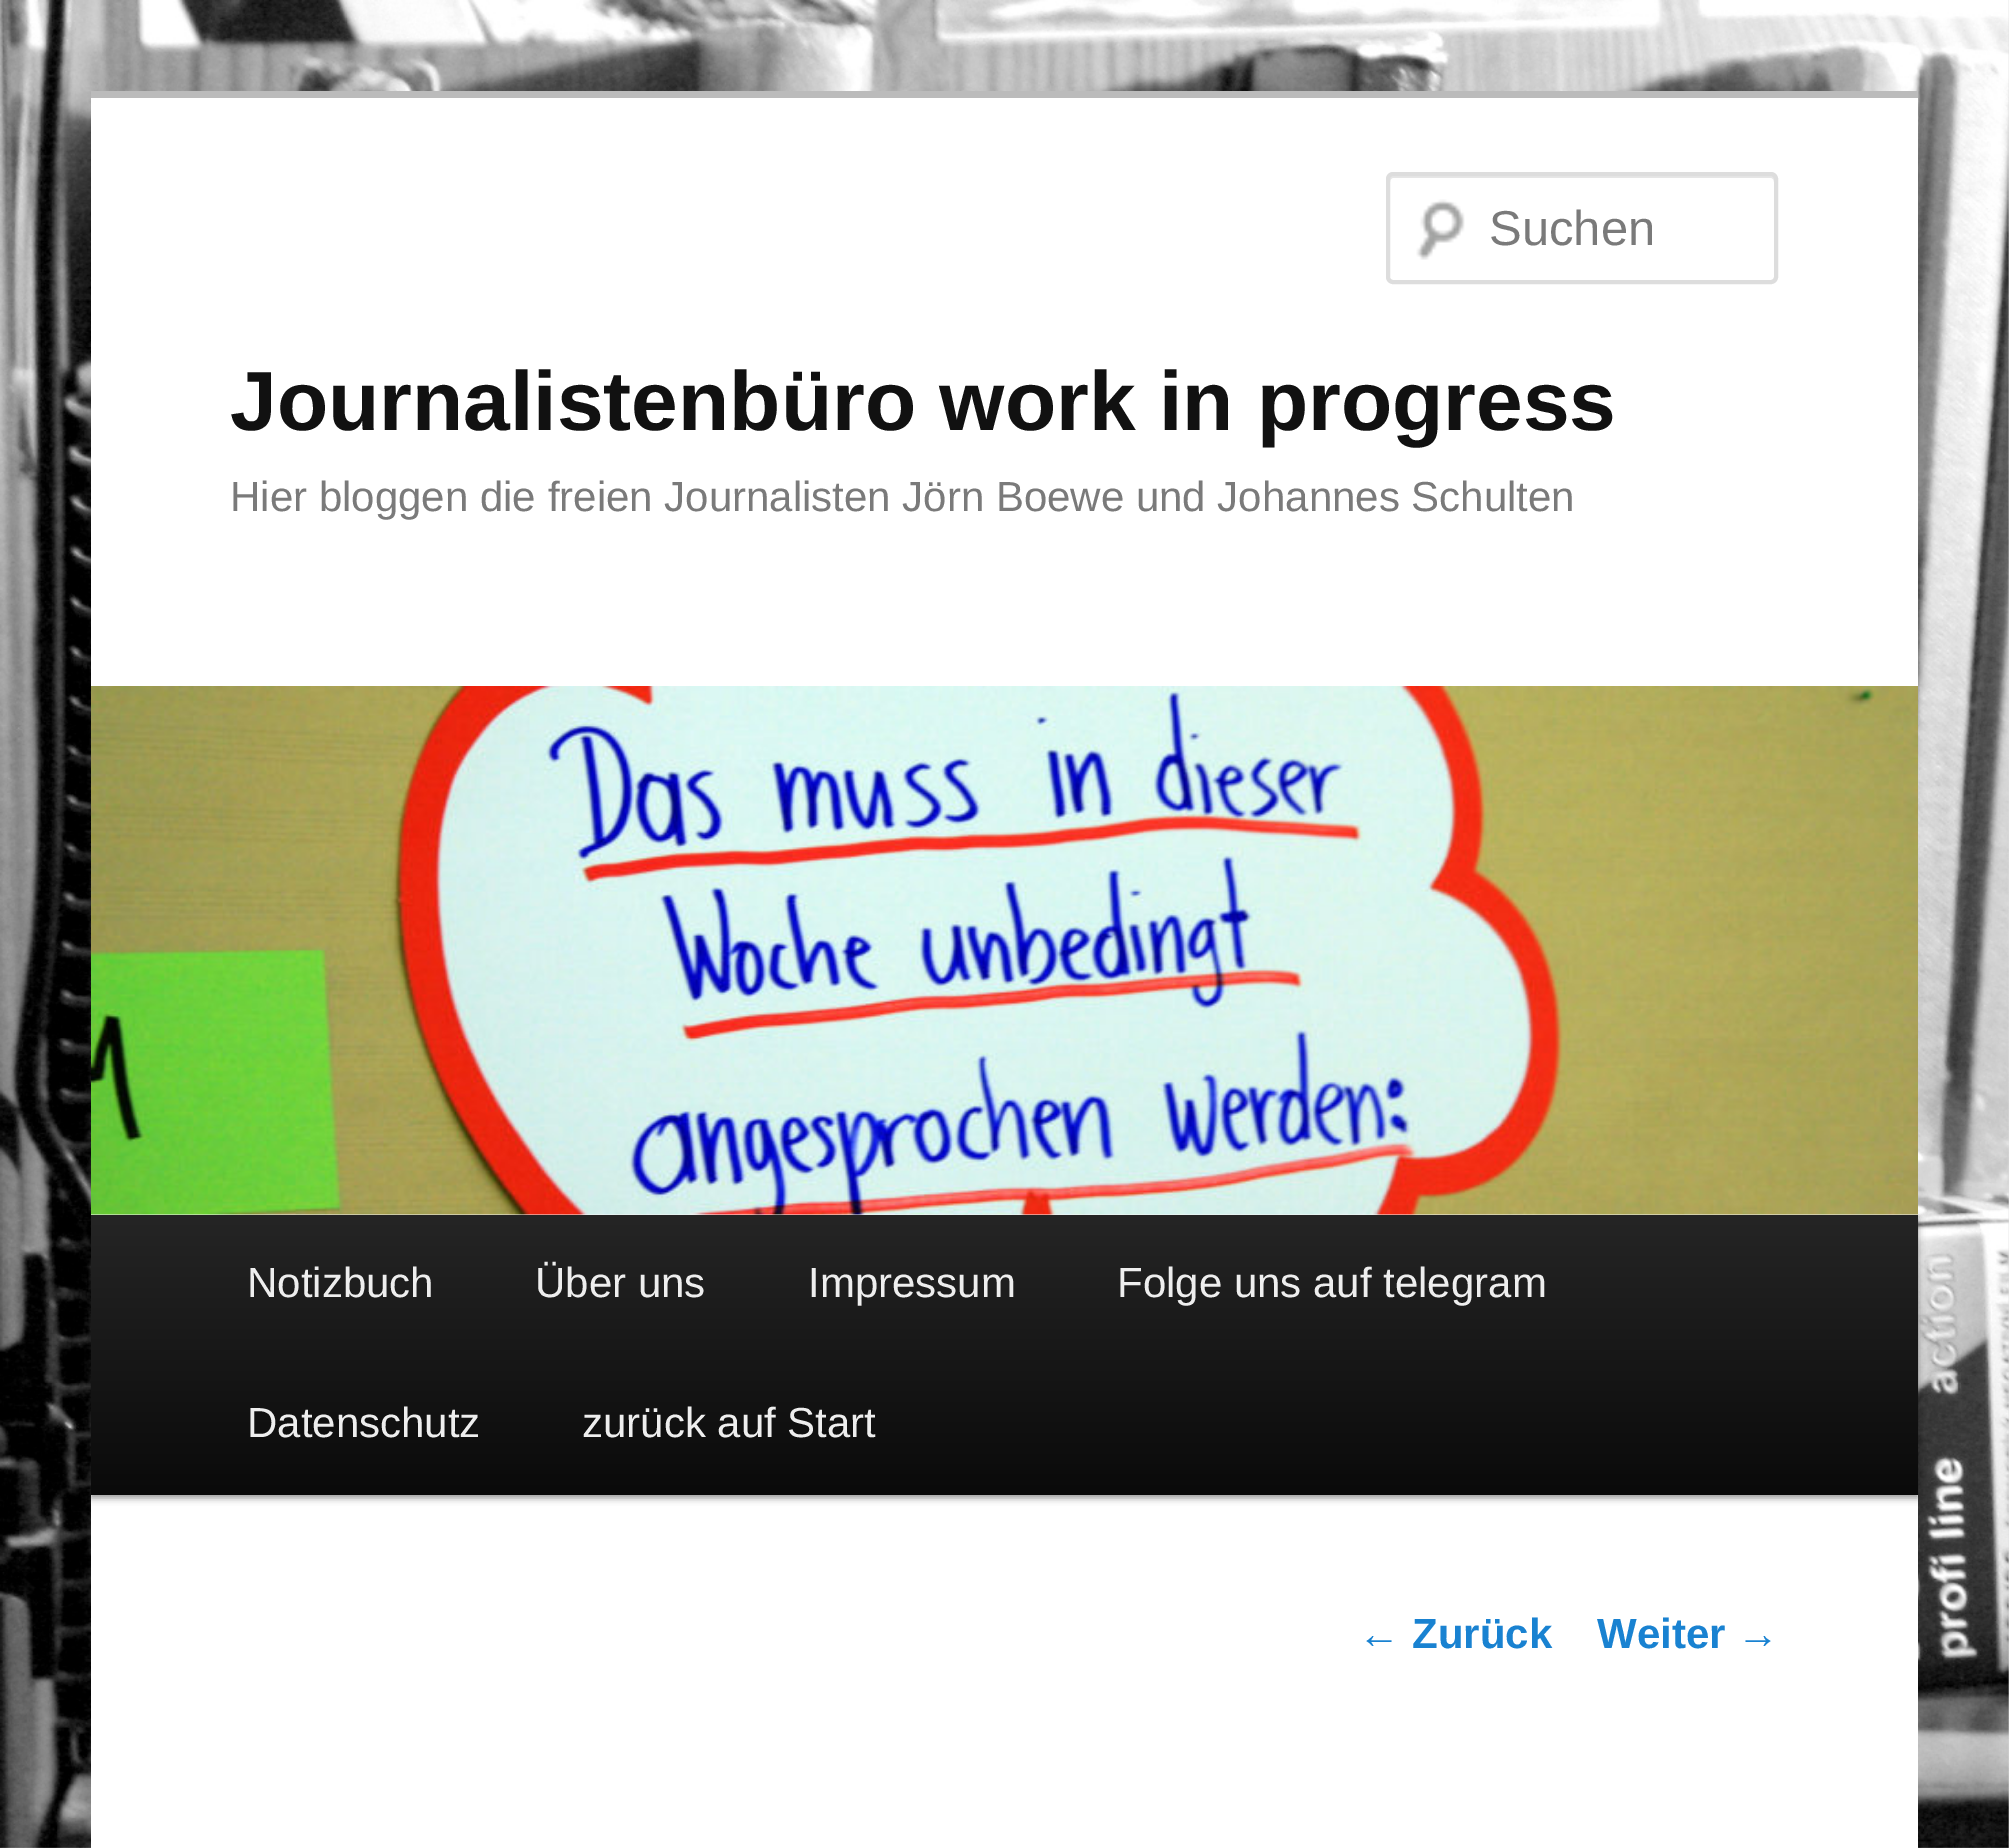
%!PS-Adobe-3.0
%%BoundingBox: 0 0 2009 1848
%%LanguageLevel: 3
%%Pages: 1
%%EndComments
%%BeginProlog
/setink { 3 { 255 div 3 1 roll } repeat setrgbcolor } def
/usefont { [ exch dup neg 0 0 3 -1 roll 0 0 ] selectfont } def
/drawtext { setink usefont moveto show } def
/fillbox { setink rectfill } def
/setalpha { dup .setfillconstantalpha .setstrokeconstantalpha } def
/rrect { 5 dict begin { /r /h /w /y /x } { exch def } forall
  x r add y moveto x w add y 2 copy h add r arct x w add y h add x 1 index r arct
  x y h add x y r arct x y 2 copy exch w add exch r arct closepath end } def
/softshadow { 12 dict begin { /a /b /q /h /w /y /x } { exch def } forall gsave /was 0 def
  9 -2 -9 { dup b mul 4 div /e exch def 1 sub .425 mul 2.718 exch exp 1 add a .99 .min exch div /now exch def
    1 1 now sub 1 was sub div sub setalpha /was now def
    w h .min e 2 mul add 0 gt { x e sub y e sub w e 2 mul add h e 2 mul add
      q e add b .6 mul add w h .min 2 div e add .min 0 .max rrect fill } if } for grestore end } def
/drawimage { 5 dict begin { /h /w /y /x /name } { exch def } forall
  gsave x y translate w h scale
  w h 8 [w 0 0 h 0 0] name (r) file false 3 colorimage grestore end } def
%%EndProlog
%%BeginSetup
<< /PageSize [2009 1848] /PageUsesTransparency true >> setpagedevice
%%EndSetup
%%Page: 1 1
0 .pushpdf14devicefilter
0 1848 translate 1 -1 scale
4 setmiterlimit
0 0 2009 1848 219 219 219 fillbox
(assets/img1.rgb) 0 0 2009 1848 drawimage
91 98 1827 1750 255 255 255 fillbox
91 91 1827 7 187 187 187 fillbox
(assets/img2.rgb) 1416 199 49 61 drawimage
230 230 230 setink
1393 178 moveto 1771 178 lineto 1773 178 1774 180 1774 182 curveto 1774 279 lineto 1775 278 1775 277 1775 276 curveto 1775 179 lineto 1775 177 1773 175 1771 175 curveto 1394 175 lineto 1392 175 1390 177 1390 179 curveto 1390 182 lineto 1390 180 1391 178 1393 178 curveto closepath fill
221 221 221 setink
4 setlinewidth
1388 174 388 108 5 rrect stroke
(Suchen) 1489 245 /LiberationSans-Regular 49 122 122 122 drawtext
(Journalistenbüro work in progress) 230 430 /LiberationSans-Bold 84 17 17 17 drawtext
(Hier bloggen die freien Journalisten Jörn Boewe und Johannes Schulten) 230 511 /LiberationSans-Regular 42 122 122 122 drawtext
0 0 0 setink
91 1218 1827 280 0 3.5 0.4 softshadow
(assets/img3.rgb) 91 686 1827 529 drawimage
gsave 91 1215 moveto 1918 1215 lineto 1918 1495 lineto 91 1495 lineto closepath clip newpath
<< /ShadingType 2 /ColorSpace /DeviceRGB /Coords [1005 1215 1005 1495] /Extend [true true] /Function << /FunctionType 2 /Domain [0 1] /C0 [0.145 0.145 0.145] /C1 [0.039 0.039 0.039] /N 1 >> >> shfill grestore
(Notizbuch) 247 1297 /LiberationSans-Regular 42 238 238 238 drawtext
(Über uns) 535 1297 /LiberationSans-Regular 42 238 238 238 drawtext
(Impressum) 808 1297 /LiberationSans-Regular 42 238 238 238 drawtext
(Folge uns auf telegram) 1117 1297 /LiberationSans-Regular 42 238 238 238 drawtext
(Datenschutz) 247 1437 /LiberationSans-Regular 42 238 238 238 drawtext
(zurück auf Start) 582 1437 /LiberationSans-Regular 42 238 238 238 drawtext
(←) 1358 1648 /LiberationSans-Regular 42 25 130 209 drawtext
(Zurück) 1412 1648 /LiberationSans-Bold 42 25 130 209 drawtext
(Weiter) 1597 1648 /LiberationSans-Bold 42 25 130 209 drawtext
(→) 1737 1648 /LiberationSans-Regular 42 25 130 209 drawtext
.poppdf14devicefilter showpage
%%EOF
